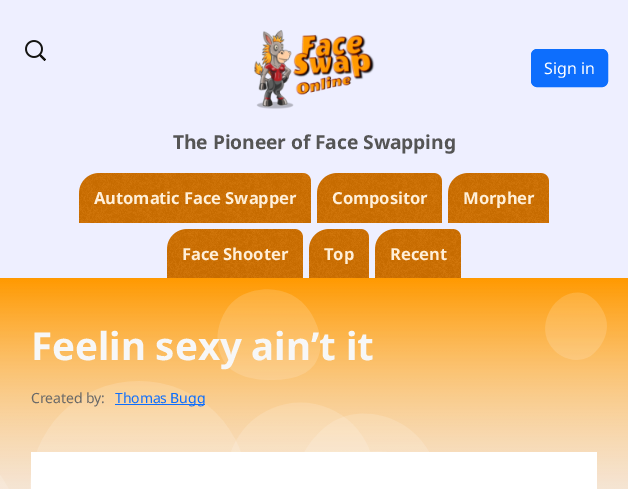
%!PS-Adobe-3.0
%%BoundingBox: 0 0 628 489
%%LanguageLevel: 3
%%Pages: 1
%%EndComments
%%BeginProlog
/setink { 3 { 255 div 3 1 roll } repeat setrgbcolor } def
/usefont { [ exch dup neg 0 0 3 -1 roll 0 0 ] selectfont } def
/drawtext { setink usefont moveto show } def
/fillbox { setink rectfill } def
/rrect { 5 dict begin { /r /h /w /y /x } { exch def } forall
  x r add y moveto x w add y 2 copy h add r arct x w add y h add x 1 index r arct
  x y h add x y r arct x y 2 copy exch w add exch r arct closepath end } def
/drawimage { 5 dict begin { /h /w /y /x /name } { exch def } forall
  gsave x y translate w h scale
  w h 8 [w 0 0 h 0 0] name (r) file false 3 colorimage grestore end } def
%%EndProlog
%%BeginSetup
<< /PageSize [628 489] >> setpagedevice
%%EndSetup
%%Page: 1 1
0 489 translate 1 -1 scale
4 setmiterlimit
0 0 628 489 238 239 255 fillbox
(assets/img1.rgb) 25 40 21 21 drawimage
(assets/img2.rgb) 254 30 121 79 drawimage
13 110 253 setink
531.5 49.5 76 37 5.5 rrect gsave fill grestore
stroke
(Sign in) 544 74 /NotoSans-Regular 16 255 255 255 drawtext
/NotoSans-Bold 19.25 usefont
85 85 85 setink
173 149 moveto -0.1 0 (The Pioneer of Face Swapping) ashow
221 119 0 setink
99 173 moveto 303 173 lineto 307.5 173 311 176.5 311 181 curveto 311 223 lineto 79 223 lineto 79 193 lineto 79 182 88 173 99 173 curveto closepath fill
(assets/img3.rgb) 79 173 232 50 drawimage
/NotoSans-Bold 16.6 usefont
255 239 216 setink
94 204 moveto -0.1 0 (Automatic Face Swapper) ashow
221 119 0 setink
337 173 moveto 434 173 lineto 438.5 173 442 176.5 442 181 curveto 442 223 lineto 317 223 lineto 317 193 lineto 317 182 326 173 337 173 curveto closepath fill
(assets/img4.rgb) 317 173 125 50 drawimage
255 239 216 setink
332 204 moveto -0.1 0 (Compositor) ashow
221 119 0 setink
468 173 moveto 541 173 lineto 545.5 173 549 176.5 549 181 curveto 549 223 lineto 448 223 lineto 448 193 lineto 448 182 457 173 468 173 curveto closepath fill
(assets/img5.rgb) 448 173 101 50 drawimage
255 239 216 setink
463 204 moveto -0.1 0 (Morpher) ashow
221 119 0 setink
187 229 moveto 295 229 lineto 299.5 229 303 232.5 303 237 curveto 303 279 lineto 167 279 lineto 167 249 lineto 167 238 176 229 187 229 curveto closepath fill
(assets/img6.rgb) 167 229 136 49 drawimage
255 239 216 setink
182 260 moveto -0.1 0 (Face Shooter) ashow
221 119 0 setink
329 229 moveto 361 229 lineto 365.5 229 369 232.5 369 237 curveto 369 279 lineto 309 279 lineto 309 249 lineto 309 238 318 229 329 229 curveto closepath fill
(assets/img7.rgb) 309 229 60 49 drawimage
255 239 216 setink
324 260 moveto -0.1 0 (Top) ashow
221 119 0 setink
395 229 moveto 453 229 lineto 457.5 229 461 232.5 461 237 curveto 461 279 lineto 375 279 lineto 375 249 lineto 375 238 384 229 395 229 curveto closepath fill
(assets/img8.rgb) 375 229 86 49 drawimage
255 239 216 setink
390 260 moveto -0.1 0 (Recent) ashow
(assets/img9.rgb) 0 278 628 211 drawimage
/NotoSans-Bold 38.5 usefont
247 247 247 setink
31 360 moveto -0.1 0 (Feelin sexy ain’t it) ashow
/NotoSans-Regular 14 usefont
104 104 104 setink
31 403 moveto -0.1 0 (Created by:) ashow
115 404 90 1 13 110 253 fillbox
115 403 moveto -0.1 0 (Thomas Bugg) ashow
31 452 566 37 255 255 255 fillbox
showpage
%%EOF
